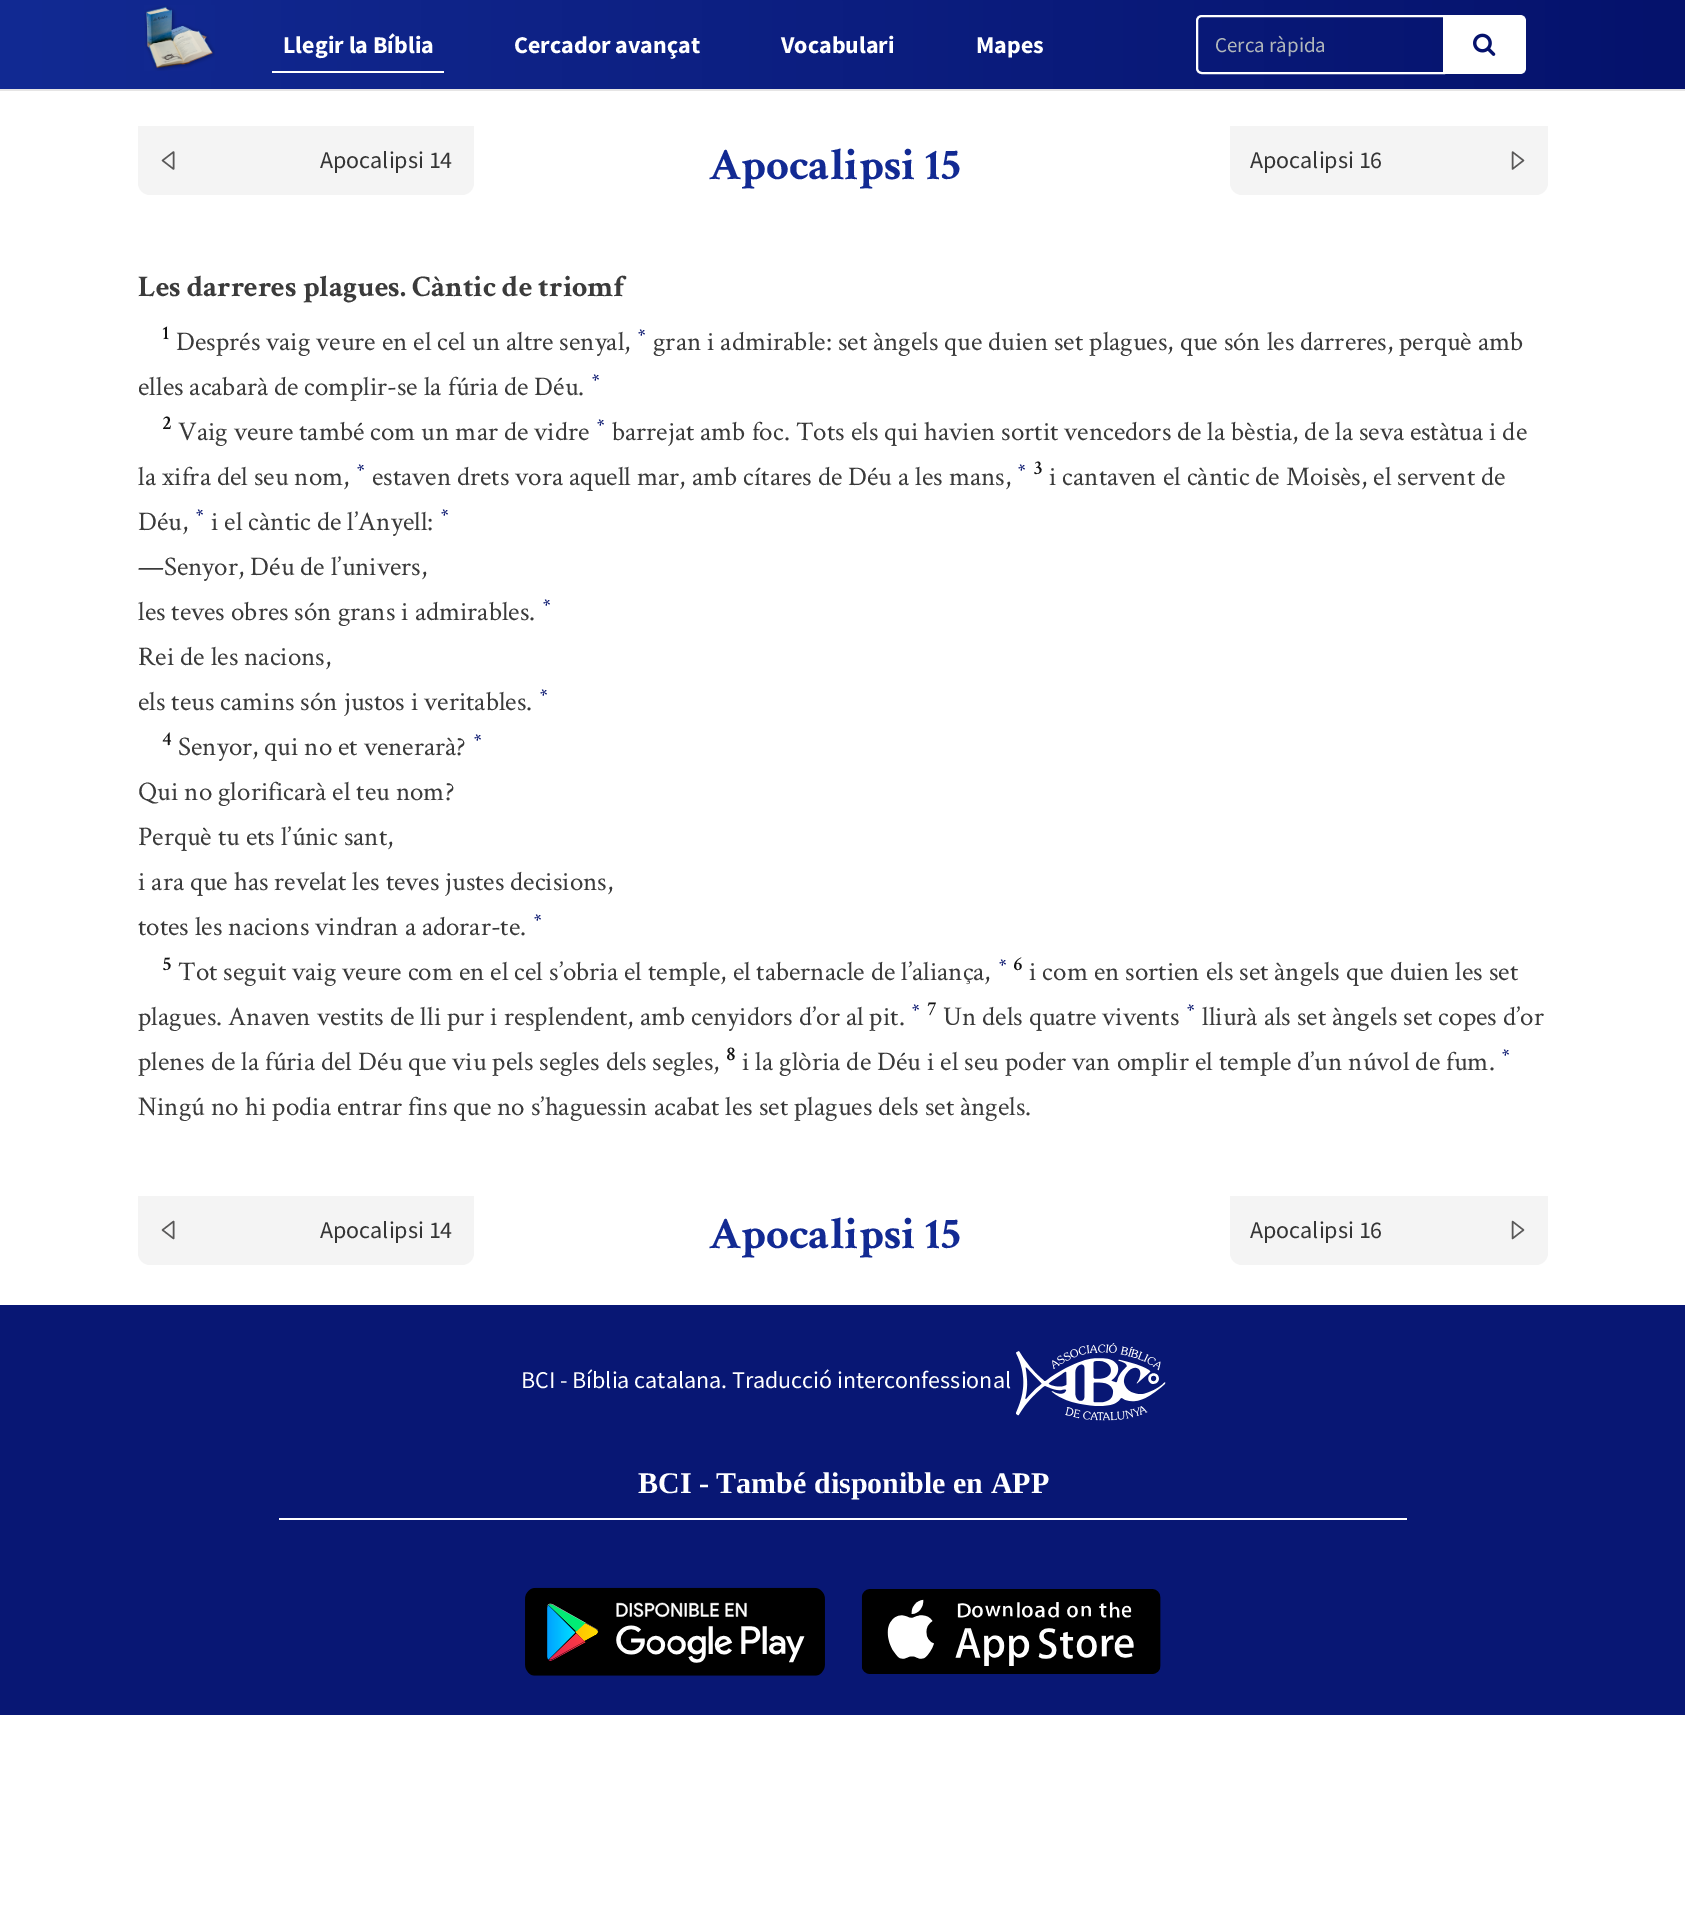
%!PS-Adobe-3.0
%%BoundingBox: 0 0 1685 1931
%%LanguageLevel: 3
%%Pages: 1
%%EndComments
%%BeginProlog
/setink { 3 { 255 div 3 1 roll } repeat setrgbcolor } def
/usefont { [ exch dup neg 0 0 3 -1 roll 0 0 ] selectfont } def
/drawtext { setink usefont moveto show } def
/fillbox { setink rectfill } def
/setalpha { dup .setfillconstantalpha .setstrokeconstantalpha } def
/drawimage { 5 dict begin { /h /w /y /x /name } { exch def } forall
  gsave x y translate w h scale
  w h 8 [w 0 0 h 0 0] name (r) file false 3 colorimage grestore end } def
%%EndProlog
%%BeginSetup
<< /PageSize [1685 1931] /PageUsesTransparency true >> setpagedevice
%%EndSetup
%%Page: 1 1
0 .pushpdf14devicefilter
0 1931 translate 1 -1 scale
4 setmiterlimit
0 0 1685 1931 255 255 255 fillbox
gsave 0 0 moveto 1685 0 lineto 1685 89 lineto 0 89 lineto closepath clip newpath
<< /ShadingType 2 /ColorSpace /DeviceRGB /Coords [0 44 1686 44] /Extend [true true] /Function << /FunctionType 2 /Domain [0 1] /C0 [0.071 0.165 0.576] /C1 [0.02 0.071 0.424] /N 1 >> >> shfill grestore
0 89 1685 2 230 229 229 fillbox
(assets/img1.rgb) 144 5 71 66 drawimage
272 71 172 2 255 255 255 fillbox
(Llegir la Bíblia) 283 53 /SourceSansPro-Bold 24 255 255 255 drawtext
(Cercador avançat) 514 53 /SourceSansPro-Bold 24 255 255 255 drawtext
(Vocabulari) 781 53 /SourceSansPro-Bold 24 255 255 255 drawtext
(Mapes) 976 53 /SourceSansPro-Bold 24 255 255 255 drawtext
0.07 setalpha
0 0 0 setink
1202 18 moveto 1443 18 lineto 1443 17 lineto 1202 17 lineto 1199 17 1197 19 1197 22 curveto 1197 20 1199 18 1202 18 curveto closepath fill
1 setalpha
255 255 255 setink
2 setlinewidth
1202 16 moveto 1444 16 lineto 1444 73 lineto 1202 73 lineto 1199 73 1197 71 1197 68 curveto 1197 21 lineto 1197 18 1199 16 1202 16 curveto closepath stroke
(Cerca ràpida) 1215 52 /SourceSansPro-Regular 21 177 183 186 drawtext
255 255 255 setink
1443 15 moveto 1520 15 lineto 1523.5 15 1526 17.5 1526 21 curveto 1526 68 lineto 1526 71.5 1523.5 74 1520 74 curveto 1443 74 lineto closepath fill
(assets/img2.rgb) 1473 33 23 23 drawimage
244 244 244 setink
138 126 moveto 474 126 lineto 474 183 lineto 474 189.5 468.5 195 462 195 curveto 150 195 lineto 143.5 195 138 189.5 138 183 curveto closepath fill
89 88 88 setink
1.4 setlinewidth
1 setlinecap
1 setlinejoin
173.5 152 moveto 173.5 169 lineto 162.5 160.5 lineto closepath stroke
(Apocalipsi 14) 320 168 /SourceSansPro-Regular 24 53 53 53 drawtext
(Apocalipsi 15) 709 179 /CrimsonText-Bold 45 18 42 147 drawtext
244 244 244 setink
1230 126 moveto 1548 126 lineto 1548 183 lineto 1548 189.5 1542.5 195 1536 195 curveto 1242 195 lineto 1235.5 195 1230 189.5 1230 183 curveto closepath fill
(Apocalipsi 16) 1250 168 /SourceSansPro-Regular 24 53 53 53 drawtext
89 88 88 setink
1512.5 169 moveto 1512.5 152 lineto 1523.5 160.5 lineto closepath stroke
(Les darreres plagues. Càntic de triomf) 138 296 /CrimsonText-Bold 30 59 59 59 drawtext
(1) 162 339 /CrimsonText-SemiBold 20 18 18 18 drawtext
(Després vaig veure en el cel un altre senyal,) 176 350 /CrimsonText-Regular 27 59 59 59 drawtext
(*) 638 341 /CrimsonText-Bold 18 5 18 108 drawtext
(gran i admirable: set àngels que duien set plagues, que són les darreres, perquè amb) 653 350 /CrimsonText-Regular 27 59 59 59 drawtext
(elles acabarà de complir-se la fúria de Déu.) 138 395 /CrimsonText-Regular 27 59 59 59 drawtext
(*) 592 386 /CrimsonText-Bold 18 5 18 108 drawtext
(2) 162 429 /CrimsonText-SemiBold 20 18 18 18 drawtext
(Vaig veure també com un mar de vidre) 178 440 /CrimsonText-Regular 27 59 59 59 drawtext
(*) 597 431 /CrimsonText-Bold 18 5 18 108 drawtext
(barrejat amb foc. Tots els qui havien sortit vencedors de la bèstia, de la seva estàtua i de) 612 440 /CrimsonText-Regular 27 59 59 59 drawtext
(la xifra del seu nom,) 138 485 /CrimsonText-Regular 27 59 59 59 drawtext
(*) 357 476 /CrimsonText-Bold 18 5 18 108 drawtext
(estaven drets vora aquell mar, amb cítares de Déu a les mans,) 372 485 /CrimsonText-Regular 27 59 59 59 drawtext
(*) 1018 476 /CrimsonText-Bold 18 5 18 108 drawtext
(3) 1033 474 /CrimsonText-SemiBold 20 18 18 18 drawtext
(i cantaven el càntic de Moisès, el servent de) 1049 485 /CrimsonText-Regular 27 59 59 59 drawtext
(Déu,) 138 530 /CrimsonText-Regular 27 59 59 59 drawtext
(*) 196 521 /CrimsonText-Bold 18 5 18 108 drawtext
(i el càntic de l’Anyell:) 211 530 /CrimsonText-Regular 27 59 59 59 drawtext
(*) 441 521 /CrimsonText-Bold 18 5 18 108 drawtext
(—Senyor, Déu de l’univers,) 138 575 /CrimsonText-Regular 27 59 59 59 drawtext
(les teves obres són grans i admirables.) 138 620 /CrimsonText-Regular 27 59 59 59 drawtext
(*) 543 611 /CrimsonText-Bold 18 5 18 108 drawtext
(Rei de les nacions,) 138 665 /CrimsonText-Regular 27 59 59 59 drawtext
(els teus camins són justos i veritables.) 138 710 /CrimsonText-Regular 27 59 59 59 drawtext
(*) 540 701 /CrimsonText-Bold 18 5 18 108 drawtext
(4) 162 745 /CrimsonText-SemiBold 20 18 18 18 drawtext
(Senyor, qui no et venerarà?) 178 755 /CrimsonText-Regular 27 59 59 59 drawtext
(*) 474 746 /CrimsonText-Bold 18 5 18 108 drawtext
(Qui no glorificarà el teu nom?) 138 800 /CrimsonText-Regular 27 59 59 59 drawtext
(Perquè tu ets l’únic sant,) 138 845 /CrimsonText-Regular 27 59 59 59 drawtext
(i ara que has revelat les teves justes decisions,) 138 890 /CrimsonText-Regular 27 59 59 59 drawtext
(totes les nacions vindran a adorar-te.) 138 935 /CrimsonText-Regular 27 59 59 59 drawtext
(*) 534 926 /CrimsonText-Bold 18 5 18 108 drawtext
(5) 162 970 /CrimsonText-SemiBold 20 18 18 18 drawtext
(Tot seguit vaig veure com en el cel s’obria el temple, el tabernacle de l’aliança,) 178 980 /CrimsonText-Regular 27 59 59 59 drawtext
(*) 999 971 /CrimsonText-Bold 18 5 18 108 drawtext
(6) 1013 970 /CrimsonText-SemiBold 20 18 18 18 drawtext
(i com en sortien els set àngels que duien les set) 1029 980 /CrimsonText-Regular 27 59 59 59 drawtext
(plagues. Anaven vestits de lli pur i resplendent, amb cenyidors d’or al pit.) 138 1025 /CrimsonText-Regular 27 59 59 59 drawtext
(*) 912 1016 /CrimsonText-Bold 18 5 18 108 drawtext
(7) 927 1015 /CrimsonText-SemiBold 20 18 18 18 drawtext
(Un dels quatre vivents) 943 1025 /CrimsonText-Regular 27 59 59 59 drawtext
(*) 1187 1016 /CrimsonText-Bold 18 5 18 108 drawtext
(lliurà als set àngels set copes d’or) 1202 1025 /CrimsonText-Regular 27 59 59 59 drawtext
(plenes de la fúria del Déu que viu pels segles dels segles,) 138 1070 /CrimsonText-Regular 27 59 59 59 drawtext
(8) 726 1060 /CrimsonText-SemiBold 20 18 18 18 drawtext
(i la glòria de Déu i el seu poder van omplir el temple d’un núvol de fum.) 742 1070 /CrimsonText-Regular 27 59 59 59 drawtext
(*) 1502 1061 /CrimsonText-Bold 18 5 18 108 drawtext
(Ningú no hi podia entrar fins que no s’haguessin acabat les set plagues dels set àngels.) 138 1115 /CrimsonText-Regular 27 59 59 59 drawtext
244 244 244 setink
138 1196 moveto 474 1196 lineto 474 1253 lineto 474 1259.5 468.5 1265 462 1265 curveto 150 1265 lineto 143.5 1265 138 1259.5 138 1253 curveto closepath fill
89 88 88 setink
173.5 1221.5 moveto 173.5 1238.5 lineto 162.5 1230 lineto closepath stroke
(Apocalipsi 14) 320 1238 /SourceSansPro-Regular 24 53 53 53 drawtext
(Apocalipsi 15) 709 1248 /CrimsonText-Bold 45 18 42 147 drawtext
244 244 244 setink
1230 1196 moveto 1548 1196 lineto 1548 1253 lineto 1548 1259.5 1542.5 1265 1536 1265 curveto 1242 1265 lineto 1235.5 1265 1230 1259.5 1230 1253 curveto closepath fill
(Apocalipsi 16) 1250 1238 /SourceSansPro-Regular 24 53 53 53 drawtext
89 88 88 setink
1512.5 1238.5 moveto 1512.5 1221.5 lineto 1523.5 1230 lineto closepath stroke
0 1305 1685 410 8 23 116 fillbox
(BCI - Bíblia catalana. Traducció interconfessional) 521 1388 /SourceSansPro-Regular 24 255 255 255 drawtext
(assets/img3.rgb) 1016 1343 150 78 drawimage
(BCI - També disponible en APP) 638 1493 /LiberationSerif-Bold 30 255 255 255 drawtext
279 1518 1128 2 255 255 255 fillbox
(assets/img4.rgb) 525 1587 300 89 drawimage
(assets/img5.rgb) 861 1589 300 85 drawimage
.poppdf14devicefilter showpage
%%EOF
